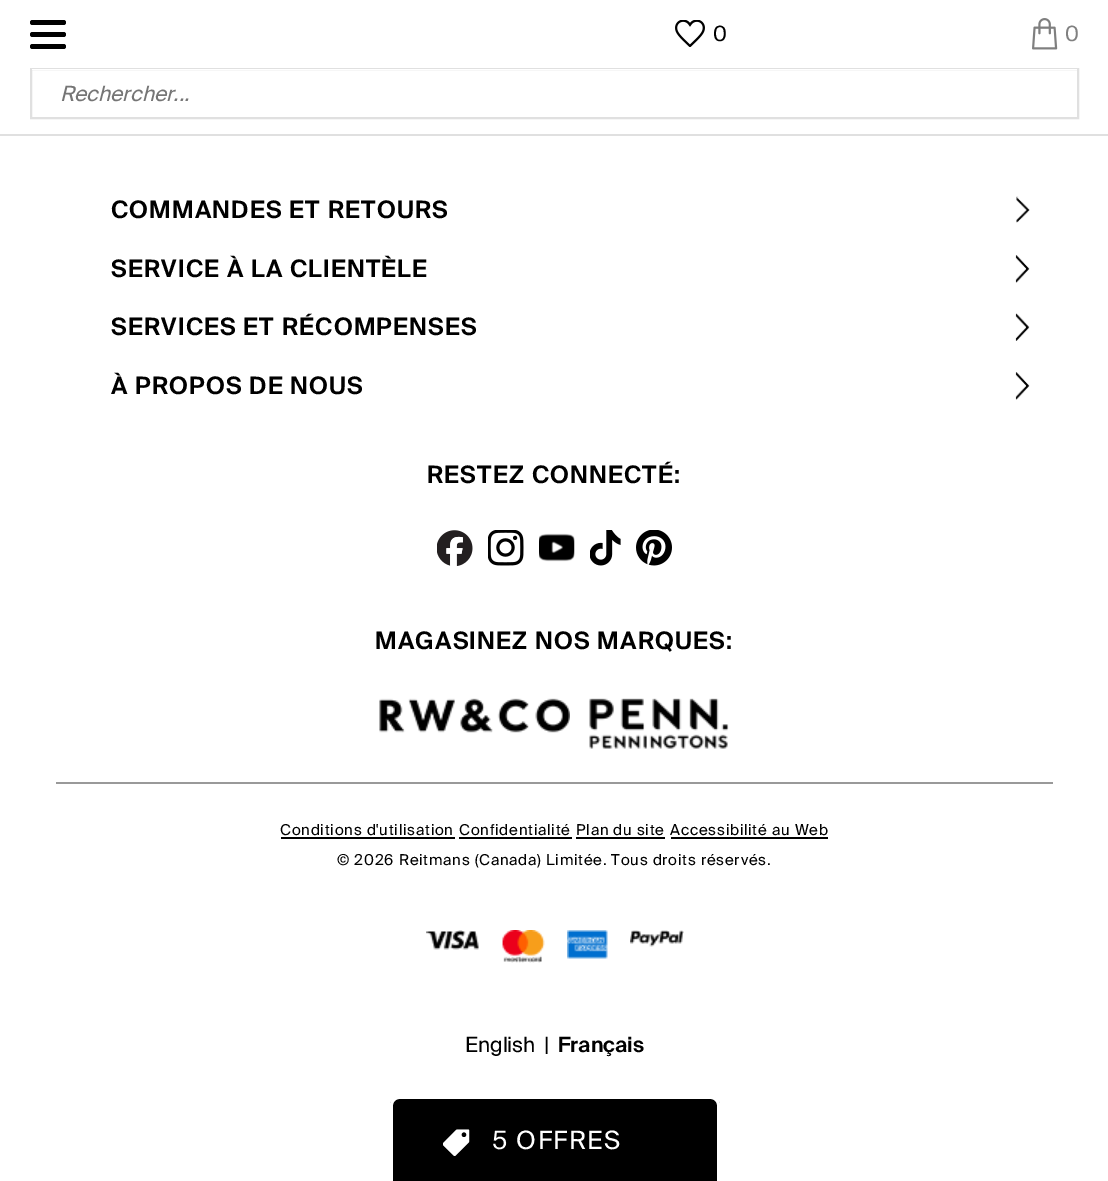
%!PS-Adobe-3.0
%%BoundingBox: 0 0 1108 1181
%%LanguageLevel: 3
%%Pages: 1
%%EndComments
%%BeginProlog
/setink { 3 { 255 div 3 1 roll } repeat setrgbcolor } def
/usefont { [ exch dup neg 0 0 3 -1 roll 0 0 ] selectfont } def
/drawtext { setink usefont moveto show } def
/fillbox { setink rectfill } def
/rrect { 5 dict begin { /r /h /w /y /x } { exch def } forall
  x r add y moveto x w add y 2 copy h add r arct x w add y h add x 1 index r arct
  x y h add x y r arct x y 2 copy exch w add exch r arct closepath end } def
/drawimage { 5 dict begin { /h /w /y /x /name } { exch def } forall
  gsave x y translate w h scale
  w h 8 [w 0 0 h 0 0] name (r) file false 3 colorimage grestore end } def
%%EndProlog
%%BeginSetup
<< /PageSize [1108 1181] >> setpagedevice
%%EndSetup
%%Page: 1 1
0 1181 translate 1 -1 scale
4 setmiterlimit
0 0 1108 1181 255 255 255 fillbox
0 134 1108 2 224 224 224 fillbox
0 0 0 setink
30 32 36 5 2.5 rrect fill
30 20 36 5 2.5 rrect fill
30 44 36 5 2.5 rrect fill
(assets/img1.rgb) 675 20 30 27 drawimage
(0) 713 41 /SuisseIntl-Regular 21 0 0 0 drawtext
(assets/img2.rgb) 1032 18 26 32 drawimage
(0) 1065 41 /SuisseIntl-Regular 21 128 128 128 drawtext
224 224 224 setink
2 setlinewidth
31 69 1047 49 rectstroke
32 69 1045 1 255 255 255 fillbox
(Rechercher...) 60 101 /SuisseIntl-Italic 21 117 117 117 drawtext
/SuisseIntl-SemiBold 24 usefont
0 0 0 setink
111 218 moveto 1.2 0 (COMMANDES ET RETOURS) ashow
(assets/img3.rgb) 1016 196 14 27 drawimage
111 277 moveto 1.2 0 (SERVICE À LA CLIENTÈLE) ashow
(assets/img4.rgb) 1015 255 15 28 drawimage
111 335 moveto 1.2 0 (SERVICES ET RÉCOMPENSES) ashow
(assets/img5.rgb) 1015 313 15 28 drawimage
111 394 moveto 1.2 0 (À PROPOS DE NOUS) ashow
(assets/img4.rgb) 1015 372 15 28 drawimage
56 782 997 2 153 153 153 fillbox
0 0 0 setink
427 483 moveto 1.2 0 (RESTEZ CONNECTÉ:) ashow
(assets/img6.rgb) 437 530 36 36 drawimage
(assets/img7.rgb) 488 530 36 36 drawimage
(assets/img8.rgb) 539 533 36 29 drawimage
(assets/img9.rgb) 590 530 31 36 drawimage
(assets/img10.rgb) 636 530 36 36 drawimage
375 649 moveto 1.2 0 (MAGASINEZ NOS MARQUES:) ashow
(assets/img11.rgb) 379 698 191 35 drawimage
(assets/img12.rgb) 589 698 140 51 drawimage
/SuisseIntl-Regular 15 usefont
280 835 moveto 0.75 0 (Conditions d'utilisation) ashow
281 837 174 2 0 0 0 fillbox
459 835 moveto 0.75 0 (Confidentialité) ashow
459 837 113 2 0 0 0 fillbox
576 835 moveto 0.75 0 (Plan du site) ashow
576 837 89 2 0 0 0 fillbox
670 835 moveto 0.75 0 (Accessibilité au Web) ashow
671 837 157 2 0 0 0 fillbox
337 865 moveto 0.75 0 (© 2026 Reitmans \(Canada\) Limitée. Tous droits réservés.) ashow
(assets/img13.rgb) 426 930 53 20 drawimage
(assets/img14.rgb) 502 930 43 33 drawimage
(assets/img15.rgb) 567 930 41 29 drawimage
(assets/img16.rgb) 630 930 54 17 drawimage
(English) 465 1052 /SuisseIntl-Regular 21 0 0 0 drawtext
(|) 544 1052 /SuisseIntl-Regular 21 0 0 0 drawtext
(Français) 558 1052 /SuisseIntl-SemiBold 21 0 0 0 drawtext
399 1097 moveto 711 1097 lineto 716 1097 720 1101 720 1106 curveto 720 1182 lineto 390 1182 lineto 390 1106 lineto 390 1101 394 1097 399 1097 curveto closepath fill
255 255 255 setink
399 1096 moveto 711 1096 lineto 716 1096 720 1100 720 1105 curveto 720 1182 lineto 390 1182 lineto 390 1105 lineto 390 1100 394 1096 399 1096 curveto closepath 399 1099 moveto 711 1099 lineto 714 1099 717 1102 717 1105 curveto 717 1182 lineto 393 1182 lineto 393 1105 lineto 393 1102 396 1099 399 1099 curveto closepath eofill
(assets/img17.rgb) 443 1129 27 27 drawimage
/SuisseIntl-Regular 25.25 usefont
492 1149 moveto 1.5 0 (5 OFFRES) ashow
showpage
%%EOF
